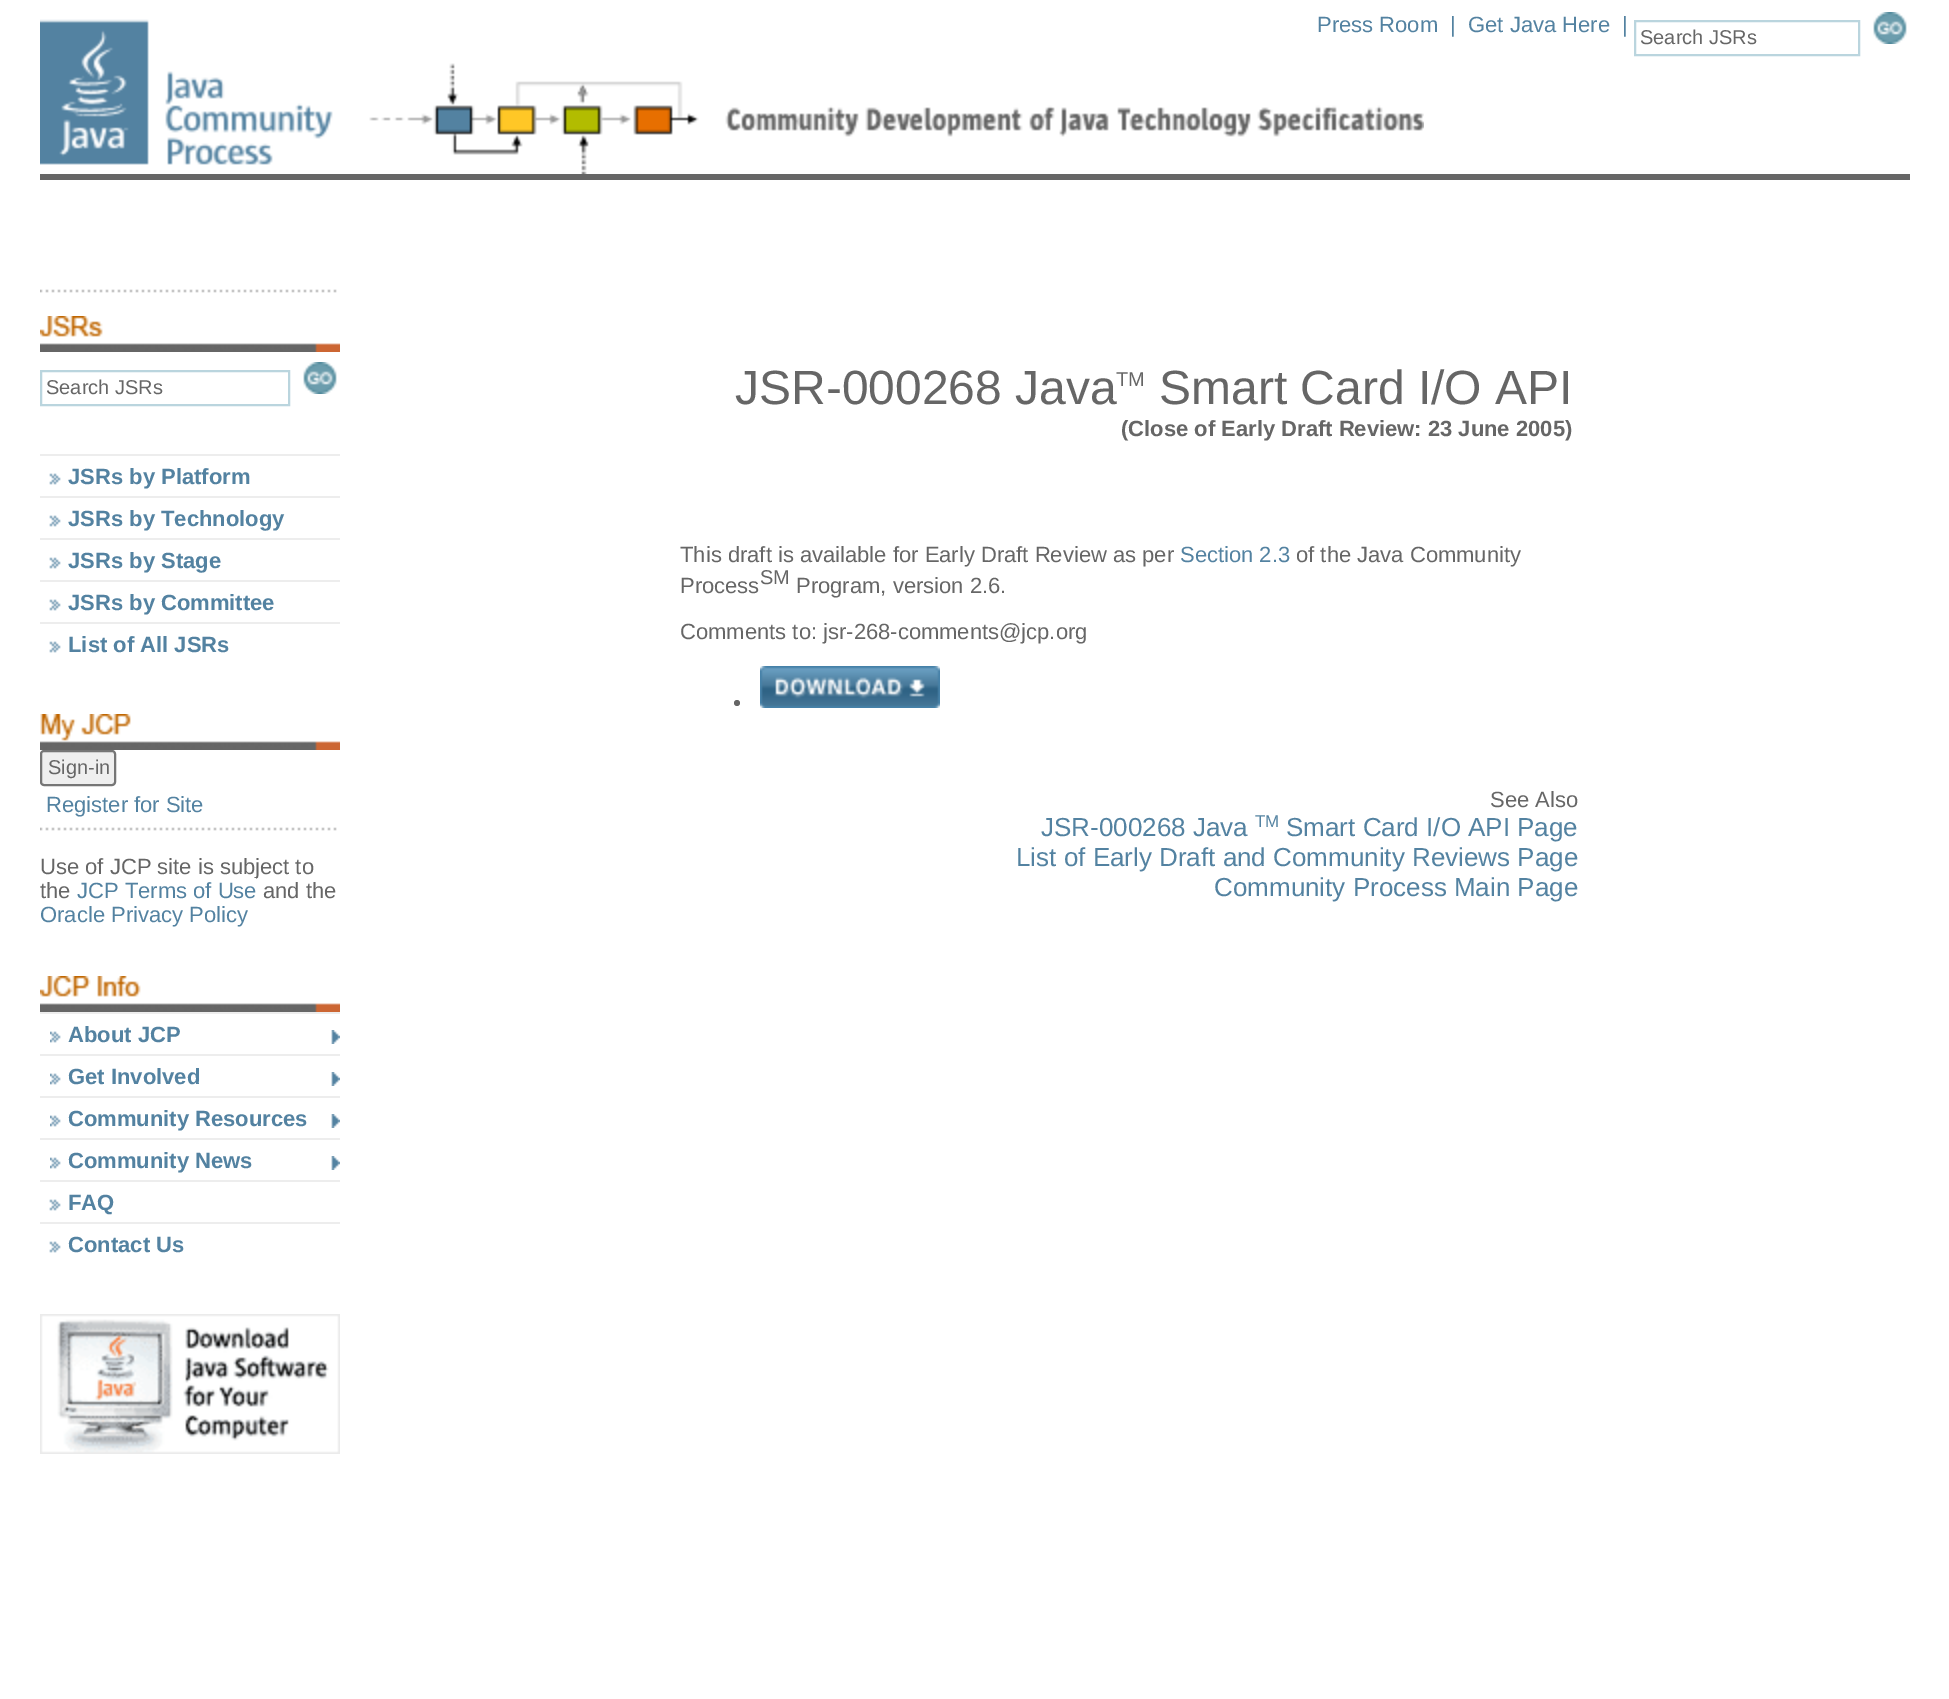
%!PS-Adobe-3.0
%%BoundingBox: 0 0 1949 1699
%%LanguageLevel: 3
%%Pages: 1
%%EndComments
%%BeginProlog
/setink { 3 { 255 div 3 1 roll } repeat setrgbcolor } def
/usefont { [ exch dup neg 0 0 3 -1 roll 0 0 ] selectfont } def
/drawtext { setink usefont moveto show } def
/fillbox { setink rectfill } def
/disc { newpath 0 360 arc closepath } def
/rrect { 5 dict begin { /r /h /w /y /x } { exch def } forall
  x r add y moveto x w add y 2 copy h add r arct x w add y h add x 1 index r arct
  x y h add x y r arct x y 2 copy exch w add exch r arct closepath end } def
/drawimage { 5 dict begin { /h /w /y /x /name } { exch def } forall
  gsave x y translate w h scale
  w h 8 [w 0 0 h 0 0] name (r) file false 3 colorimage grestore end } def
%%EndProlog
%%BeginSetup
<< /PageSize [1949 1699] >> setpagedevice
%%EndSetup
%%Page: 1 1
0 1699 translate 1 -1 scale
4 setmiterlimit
0 0 1949 1699 255 255 255 fillbox
(assets/img1.rgb) 40 19 1384 155 drawimage
(Press Room) 1317 32 /LiberationSans-Regular 22 83 130 161 drawtext
(|) 1450 32 /LiberationSans-Regular 22 83 130 161 drawtext
(Get Java Here) 1468 32 /LiberationSans-Regular 22 83 130 161 drawtext
(|) 1622 32 /LiberationSans-Regular 22 83 130 161 drawtext
186 213 222 setink
2 setlinewidth
1635 21 224 34 rectstroke
(Search JSRs) 1640 44 /LiberationSans-Regular 20 102 102 102 drawtext
(assets/img2.rgb) 1873 12 34 32 drawimage
40 174 1870 6 102 102 102 fillbox
(assets/img3.rgb) 40 289 297 4 drawimage
(assets/img4.rgb) 40 316 300 36 drawimage
186 213 222 setink
41 371 248 34 rectstroke
(Search JSRs) 46 394 /LiberationSans-Regular 20 102 102 102 drawtext
(assets/img2.rgb) 303 362 34 32 drawimage
(assets/img5.rgb) 49 473 12 12 drawimage
40 454 300 2 237 237 237 fillbox
(JSRs by Platform) 68 484 /LiberationSans-Bold 22 83 130 161 drawtext
(assets/img5.rgb) 49 515 12 12 drawimage
40 496 300 2 237 237 237 fillbox
(JSRs by Technology) 68 526 /LiberationSans-Bold 22 83 130 161 drawtext
(assets/img5.rgb) 49 557 12 12 drawimage
40 538 300 2 237 237 237 fillbox
(JSRs by Stage) 68 568 /LiberationSans-Bold 22 83 130 161 drawtext
(assets/img5.rgb) 49 599 12 12 drawimage
40 580 300 2 237 237 237 fillbox
(JSRs by Committee) 68 610 /LiberationSans-Bold 22 83 130 161 drawtext
(assets/img5.rgb) 49 641 12 12 drawimage
40 622 300 2 237 237 237 fillbox
(List of All JSRs) 68 652 /LiberationSans-Bold 22 83 130 161 drawtext
(assets/img6.rgb) 40 714 300 36 drawimage
239 239 239 setink
41 751 74 34 3 rrect gsave fill grestore
118 118 118 setink
stroke
(Sign-in) 48 774 /LiberationSans-Regular 20 102 102 102 drawtext
(Register for Site) 46 812 /LiberationSans-Regular 22 83 130 161 drawtext
(assets/img3.rgb) 40 827 297 4 drawimage
(Use of JCP site is subject to) 40 874 /LiberationSans-Regular 22 102 102 102 drawtext
(the) 40 898 /LiberationSans-Regular 22 102 102 102 drawtext
(JCP Terms of Use) 77 898 /LiberationSans-Regular 22 83 130 161 drawtext
254 878 2 1 255 255 255 fillbox
(and the) 263 898 /LiberationSans-Regular 22 102 102 102 drawtext
(Oracle Privacy Policy) 40 922 /LiberationSans-Regular 22 83 130 161 drawtext
(assets/img7.rgb) 40 976 300 36 drawimage
(assets/img8.rgb) 50 1030 290 14 drawimage
40 1012 300 2 237 237 237 fillbox
(About JCP) 68 1042 /LiberationSans-Bold 22 83 130 161 drawtext
(assets/img8.rgb) 50 1072 290 14 drawimage
40 1054 300 2 237 237 237 fillbox
(Get Involved) 68 1084 /LiberationSans-Bold 22 83 130 161 drawtext
(assets/img8.rgb) 50 1114 290 14 drawimage
40 1096 300 2 237 237 237 fillbox
(Community Resources) 68 1126 /LiberationSans-Bold 22 83 130 161 drawtext
(assets/img8.rgb) 50 1156 290 14 drawimage
40 1138 300 2 237 237 237 fillbox
(Community News) 68 1168 /LiberationSans-Bold 22 83 130 161 drawtext
(assets/img5.rgb) 49 1199 12 12 drawimage
40 1180 300 2 237 237 237 fillbox
(FAQ) 68 1210 /LiberationSans-Bold 22 83 130 161 drawtext
(assets/img5.rgb) 49 1241 12 12 drawimage
40 1222 300 2 237 237 237 fillbox
(Contact Us) 68 1252 /LiberationSans-Bold 22 83 130 161 drawtext
(assets/img9.rgb) 40 1314 300 140 drawimage
(JSR-000268 Java) 735 404 /LiberationSans-Regular 48 102 102 102 drawtext
(TM) 1116 386 /LiberationSans-Regular 20 102 102 102 drawtext
(Smart Card I/O API) 1159 404 /LiberationSans-Regular 48 102 102 102 drawtext
(\(Close of Early Draft Review: 23 June 2005\)) 1121 436 /LiberationSans-Bold 22 102 102 102 drawtext
(This draft is available for Early Draft Review as per) 680 562 /LiberationSans-Regular 22 102 102 102 drawtext
(Section 2.3) 1180 562 /LiberationSans-Regular 22 83 130 161 drawtext
(of the Java Community) 1296 562 /LiberationSans-Regular 22 102 102 102 drawtext
(Process) 680 593 /LiberationSans-Regular 22 102 102 102 drawtext
(SM) 760 584 /LiberationSans-Regular 20 102 102 102 drawtext
(Program, version 2.6.) 796 593 /LiberationSans-Regular 22 102 102 102 drawtext
(Comments to: jsr-268-comments@jcp.org) 680 639 /LiberationSans-Regular 22 102 102 102 drawtext
737 703 3 disc fill
(assets/img10.rgb) 760 666 180 42 drawimage
(See Also) 1490 807 /LiberationSans-Regular 22 102 102 102 drawtext
(JSR-000268 Java) 1041 836 /LiberationSans-Regular 26 83 130 161 drawtext
(TM) 1255 827 /LiberationSans-Regular 17 83 130 161 drawtext
(Smart Card I/O API Page) 1286 836 /LiberationSans-Regular 26 83 130 161 drawtext
(List of Early Draft and Community Reviews Page) 1016 866 /LiberationSans-Regular 26 83 130 161 drawtext
(Community Process Main Page) 1214 896 /LiberationSans-Regular 26 83 130 161 drawtext
showpage
%%EOF
